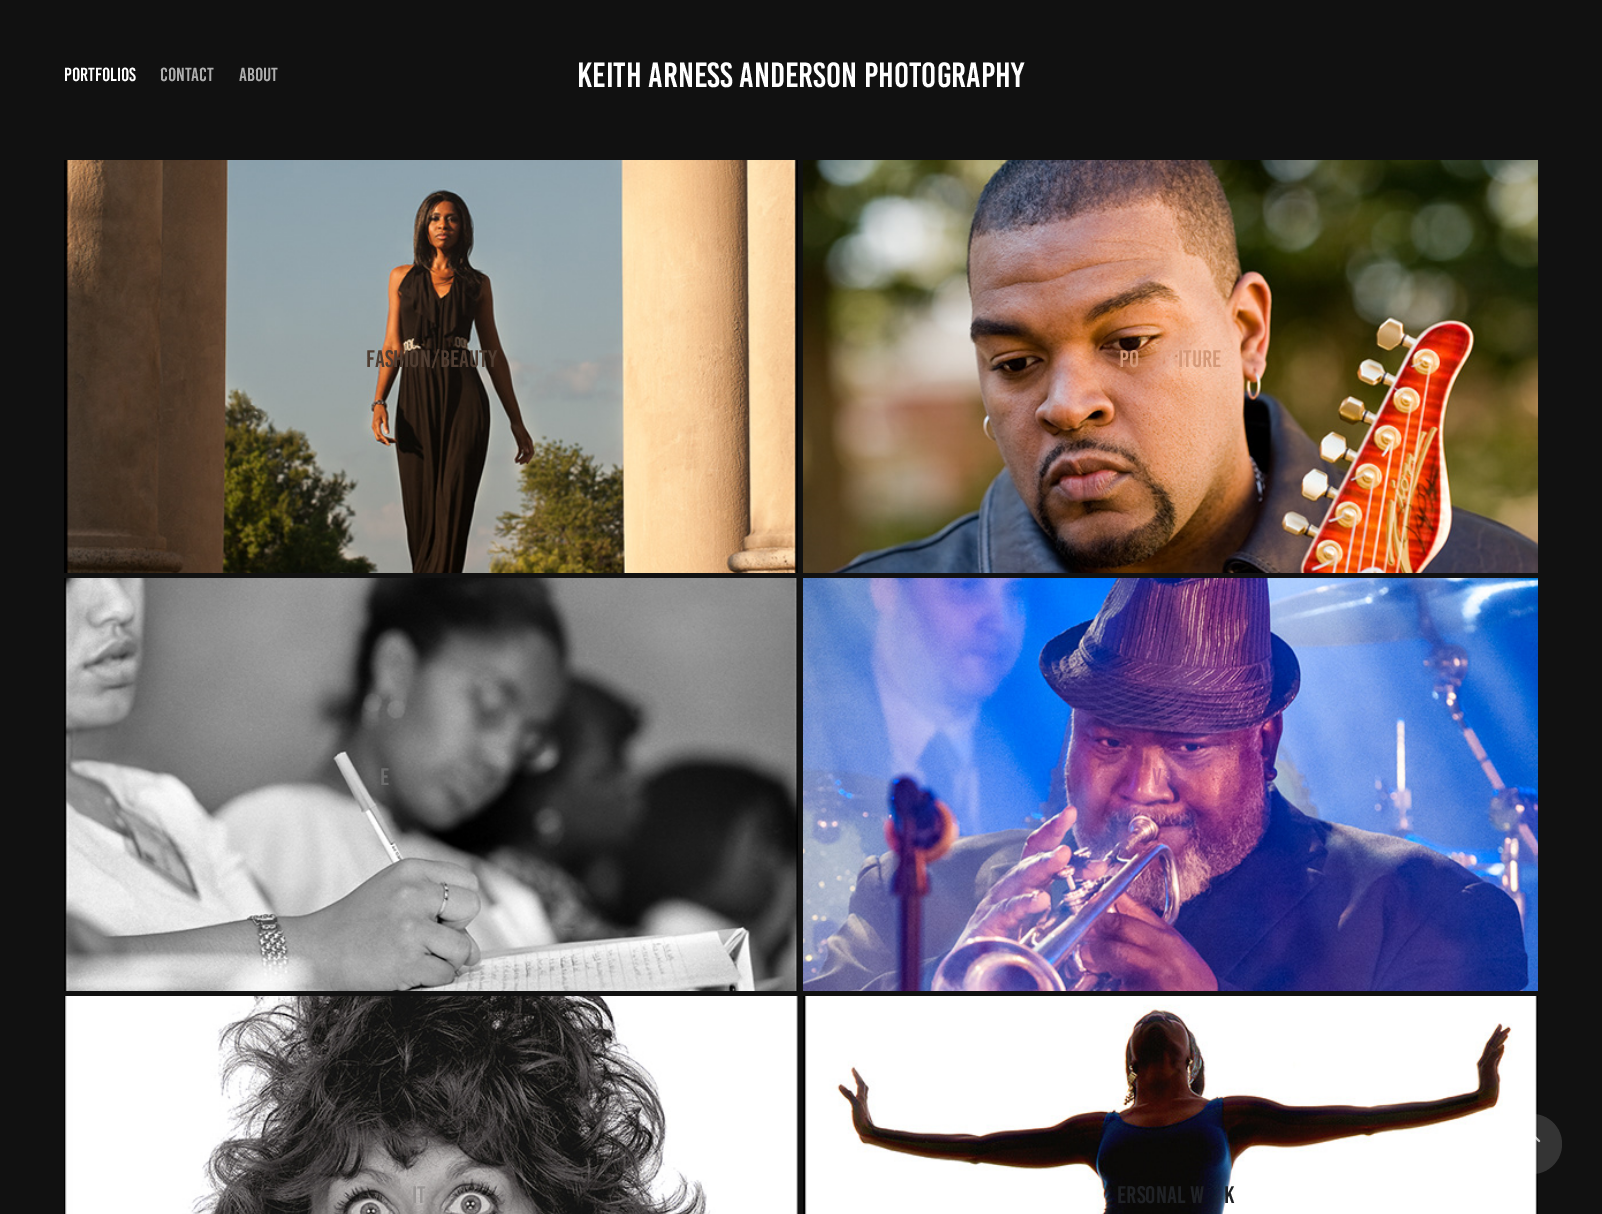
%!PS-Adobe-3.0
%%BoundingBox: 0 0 1602 1214
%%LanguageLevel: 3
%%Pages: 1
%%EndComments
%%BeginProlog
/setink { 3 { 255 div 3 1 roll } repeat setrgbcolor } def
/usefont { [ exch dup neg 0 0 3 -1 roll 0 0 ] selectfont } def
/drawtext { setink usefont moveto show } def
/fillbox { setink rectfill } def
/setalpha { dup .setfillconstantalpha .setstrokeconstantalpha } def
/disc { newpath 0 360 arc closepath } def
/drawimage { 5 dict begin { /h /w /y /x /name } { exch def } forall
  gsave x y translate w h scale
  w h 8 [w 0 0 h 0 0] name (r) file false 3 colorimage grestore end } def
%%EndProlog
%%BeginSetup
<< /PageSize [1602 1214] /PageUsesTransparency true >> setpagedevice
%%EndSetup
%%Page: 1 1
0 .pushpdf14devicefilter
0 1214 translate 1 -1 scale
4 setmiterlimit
0 0 1602 1214 17 17 17 fillbox
(PORTFOLIOS) 64 81 /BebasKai-Regular 19 255 255 255 drawtext
(CONTACT) 160 81 /BebasKai-Regular 19 174 174 174 drawtext
(ABOUT) 239 81 /BebasKai-Regular 19 174 174 174 drawtext
(KEITH ARNESS ANDERSON PHOTOGRAPHY) 577 87 /BebasKai-Regular 35 255 255 255 drawtext
(assets/img1.rgb) 64 160 734 413 drawimage
(FASHION/BEAUTY) 366 367 /BebasKai-Regular 24 79 61 50 drawtext
(assets/img2.rgb) 803 160 735 413 drawimage
(PO) 1119 367 /BebasKai-Regular 24 212 152 119 drawtext
(ITURE) 1178 367 /BebasKai-Regular 24 212 152 119 drawtext
(assets/img3.rgb) 64 578 734 413 drawimage
(E) 380 785 /BebasKai-Regular 24 108 108 108 drawtext
(assets/img4.rgb) 803 578 735 413 drawimage
(V) 1152 785 /BebasKai-Regular 24 197 108 152 drawtext
(assets/img5.rgb) 64 996 734 218 drawimage
(IT) 412 1203 /BebasKai-Regular 24 150 147 146 drawtext
(assets/img6.rgb) 803 996 735 218 drawimage
(ERSONAL W) 1117 1203 /BebasKai-Regular 24 31 33 37 drawtext
(K) 1224 1203 /BebasKai-Regular 24 31 33 37 drawtext
0.15 setalpha
255 255 255 setink
1532 1144 30 disc fill
1 setalpha
(assets/img7.rgb) 1535 1136 6 7 drawimage
.poppdf14devicefilter showpage
%%EOF
